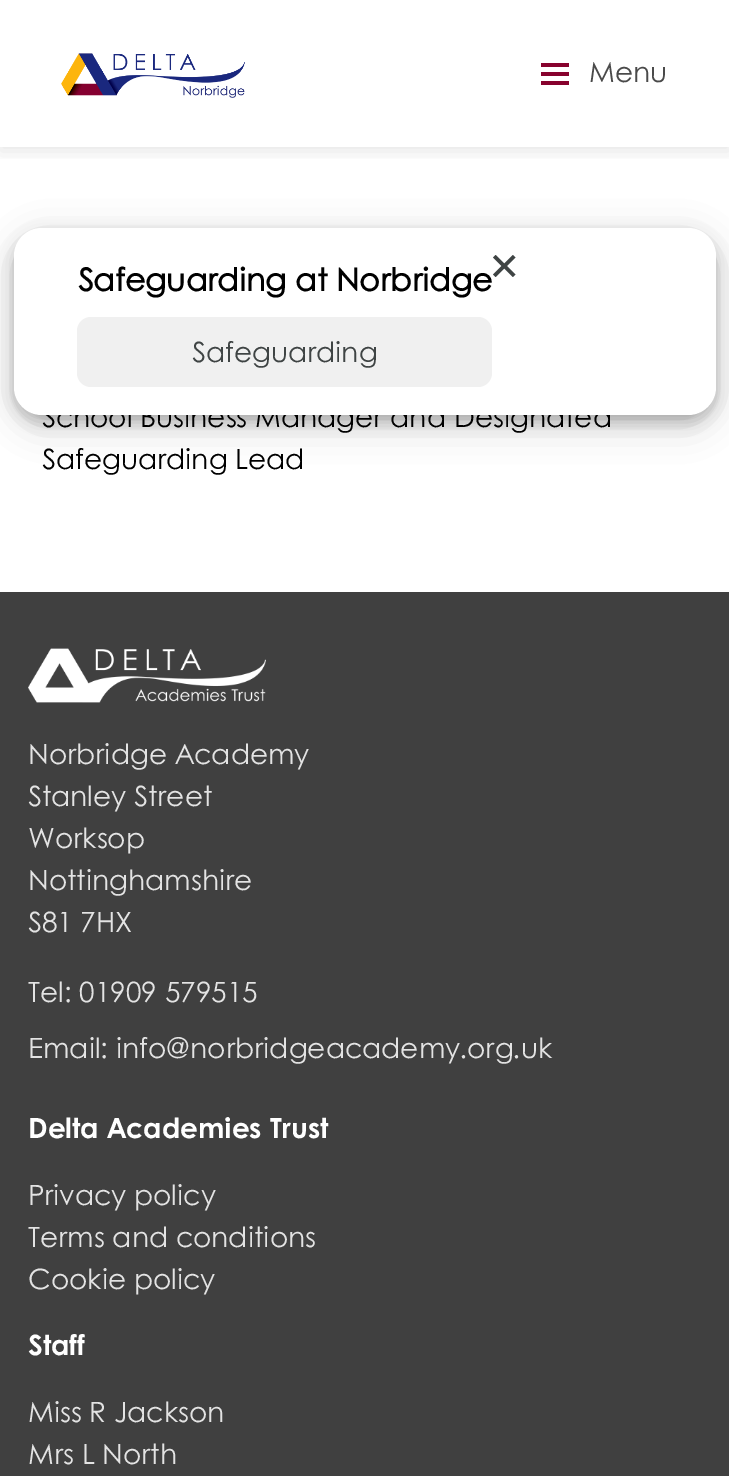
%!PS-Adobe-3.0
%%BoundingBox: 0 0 729 1476
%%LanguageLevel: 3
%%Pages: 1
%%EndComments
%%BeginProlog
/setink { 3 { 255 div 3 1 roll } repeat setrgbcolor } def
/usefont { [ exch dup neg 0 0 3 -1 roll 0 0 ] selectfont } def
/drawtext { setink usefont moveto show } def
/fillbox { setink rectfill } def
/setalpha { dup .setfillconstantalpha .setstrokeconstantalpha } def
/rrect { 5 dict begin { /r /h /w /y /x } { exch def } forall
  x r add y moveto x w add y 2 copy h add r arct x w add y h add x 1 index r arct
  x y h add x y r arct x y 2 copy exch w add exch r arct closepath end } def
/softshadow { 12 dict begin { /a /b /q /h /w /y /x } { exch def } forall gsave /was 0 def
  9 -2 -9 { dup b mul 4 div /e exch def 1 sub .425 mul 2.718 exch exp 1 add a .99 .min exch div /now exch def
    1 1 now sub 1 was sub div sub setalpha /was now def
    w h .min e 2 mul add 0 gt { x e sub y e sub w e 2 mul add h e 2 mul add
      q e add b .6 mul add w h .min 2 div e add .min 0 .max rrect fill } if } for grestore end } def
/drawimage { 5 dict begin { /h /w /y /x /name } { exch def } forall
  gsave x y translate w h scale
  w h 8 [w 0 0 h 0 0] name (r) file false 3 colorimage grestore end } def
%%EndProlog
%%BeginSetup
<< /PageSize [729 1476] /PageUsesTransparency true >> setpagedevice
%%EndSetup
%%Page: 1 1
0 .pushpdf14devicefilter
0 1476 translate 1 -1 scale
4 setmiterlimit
0 0 729 1476 255 255 255 fillbox
gsave
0 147 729 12 rectclip
0 0 0 setink
0 4 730 147 0 9 0.1 softshadow
grestore
(assets/img1.rgb) 61 53 184 45 drawimage
541 63 28 4 135 2 46 fillbox
(Menu) 589 82 /CenturyGothic-Regular 28 74 74 74 drawtext
541 72 28 4 135 2 46 fillbox
541 81 28 4 135 2 46 fillbox
0 0 0 setink
14 238 702 187 28 17.5 0.19 softshadow
14 235 702 187 28 7 0.2 softshadow
(School Business Manager and Designated) 42 427 /CenturyGothic-Regular 28 0 0 0 drawtext
255 255 255 setink
14 228 702 187 28 rrect fill
(Safeguarding at Norbridge) 78 291 /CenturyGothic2-Bold 31.5 0 0 0 drawtext
63 68 68 setink
495.5 255 moveto 515.5 274.5 lineto 513 277 lineto 493 257.5 lineto closepath fill
493 274.5 moveto 513 255 lineto 515.5 257.5 lineto 495.5 277 lineto closepath fill
240 240 240 setink
77 317 415 70 14 rrect fill
(Safeguarding) 192 362 /CenturyGothic-Regular 28 63 68 68 drawtext
(Safeguarding Lead) 42 469 /CenturyGothic-Regular 28 0 0 0 drawtext
0 592 729 884 64 64 64 fillbox
(assets/img2.rgb) 28 648 238 55 drawimage
(Norbridge Academy) 28 764 /CenturyGothic-Regular 28 227 227 227 drawtext
(Stanley Street) 28 806 /CenturyGothic-Regular 28 227 227 227 drawtext
(Worksop) 28 848 /CenturyGothic-Regular 28 227 227 227 drawtext
(Nottinghamshire) 28 890 /CenturyGothic-Regular 28 227 227 227 drawtext
(S81 7HX) 28 932 /CenturyGothic-Regular 28 227 227 227 drawtext
(Tel: 01909 579515) 28 1002 /CenturyGothic-Regular 28 227 227 227 drawtext
(Email: info@norbridgeacademy.org.uk) 28 1058 /CenturyGothic-Regular 28 227 227 227 drawtext
(Delta Academies Trust) 28 1138 /CenturyGothic-Bold 28 255 255 255 drawtext
(Privacy policy) 28 1205 /CenturyGothic-Regular 28 227 227 227 drawtext
(Terms and conditions) 28 1247 /CenturyGothic-Regular 28 227 227 227 drawtext
(Cookie policy) 28 1289 /CenturyGothic-Regular 28 227 227 227 drawtext
(Staff) 28 1355 /CenturyGothic-Bold 28 255 255 255 drawtext
(Miss R Jackson) 28 1422 /CenturyGothic-Regular 28 227 227 227 drawtext
(Mrs L North) 28 1464 /CenturyGothic-Regular 28 227 227 227 drawtext
.poppdf14devicefilter showpage
%%EOF
